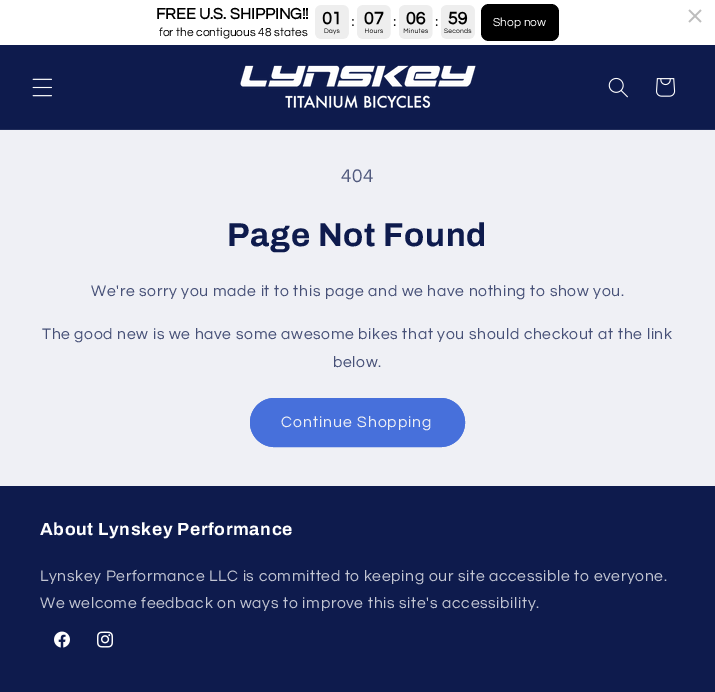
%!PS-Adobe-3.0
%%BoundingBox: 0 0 715 692
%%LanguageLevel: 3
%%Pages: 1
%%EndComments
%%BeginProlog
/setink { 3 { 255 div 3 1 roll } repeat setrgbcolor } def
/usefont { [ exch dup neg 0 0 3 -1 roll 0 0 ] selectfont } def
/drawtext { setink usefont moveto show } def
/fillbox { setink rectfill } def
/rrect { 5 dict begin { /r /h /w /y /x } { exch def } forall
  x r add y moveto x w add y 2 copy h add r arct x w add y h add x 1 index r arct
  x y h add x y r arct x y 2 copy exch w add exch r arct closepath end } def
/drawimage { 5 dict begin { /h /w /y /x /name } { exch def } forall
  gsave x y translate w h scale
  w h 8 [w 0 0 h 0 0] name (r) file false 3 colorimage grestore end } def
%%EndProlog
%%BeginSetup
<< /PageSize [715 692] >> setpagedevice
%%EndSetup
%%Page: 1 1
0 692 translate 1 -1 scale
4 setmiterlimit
0 0 715 692 239 240 245 fillbox
0 0 715 45 255 255 255 fillbox
(FREE U.S. SHIPPING!!) 156 19 /Questrial-Bold 16 0 0 0 drawtext
(for the contiguous 48 states) 159 36 /Questrial-Regular 12 0 0 0 drawtext
(assets/img1.rgb) 315 5 160 34 drawimage
481 4 78 37 8 rrect fill
(Shop now) 493 26 /Questrial-Regular 12 255 255 255 drawtext
(assets/img2.rgb) 688 9 14 14 drawimage
0 45 715 84 14 27 77 fillbox
0 129 715 1 33 45 91 fillbox
(assets/img3.rgb) 32 78 20 19 drawimage
(assets/img4.rgb) 240 65 236 44 drawimage
(assets/img5.rgb) 608 77 20 21 drawimage
(assets/img6.rgb) 656 78 20 19 drawimage
/Questrial-Regular 19 usefont
82 91 127 setink
341 182 moveto 0.63 0 (404) ashow
/Archivo-Bold 33 usefont
14 27 77 setink
227 246 moveto 0.65 0 (Page Not Found) ashow
/Questrial-Regular 15.75 usefont
70 80 119 setink
91 296 moveto 0.63 0 (We're sorry you made it to this page and we have nothing to show you.) ashow
42 339 moveto 0.63 0 (The good new is we have some awesome bikes that you should checkout at the link) ashow
333 367 moveto 0.63 0 (below.) ashow
71 112 219 setink
250 398 215 49 24.5 rrect fill
250.5 398.5 214 48 24 rrect stroke
239 240 245 setink
281 427 moveto 1 0 (Continue Shopping) ashow
0 486 715 206 14 27 77 fillbox
/Archivo-Bold 17.6 usefont
255 255 255 setink
40 535 moveto 0.65 0 (About Lynskey Performance) ashow
/Questrial-Regular 15.75 usefont
195 198 211 setink
40 581 moveto 0.63 0 (Lynskey Performance LLC is committed to keeping our site accessible to everyone.) ashow
40 608 moveto 0.63 0 (We welcome feedback on ways to improve this site's accessibility.) ashow
(assets/img7.rgb) 54 631 16 17 drawimage
(assets/img8.rgb) 97 631 16 17 drawimage
showpage
%%EOF
